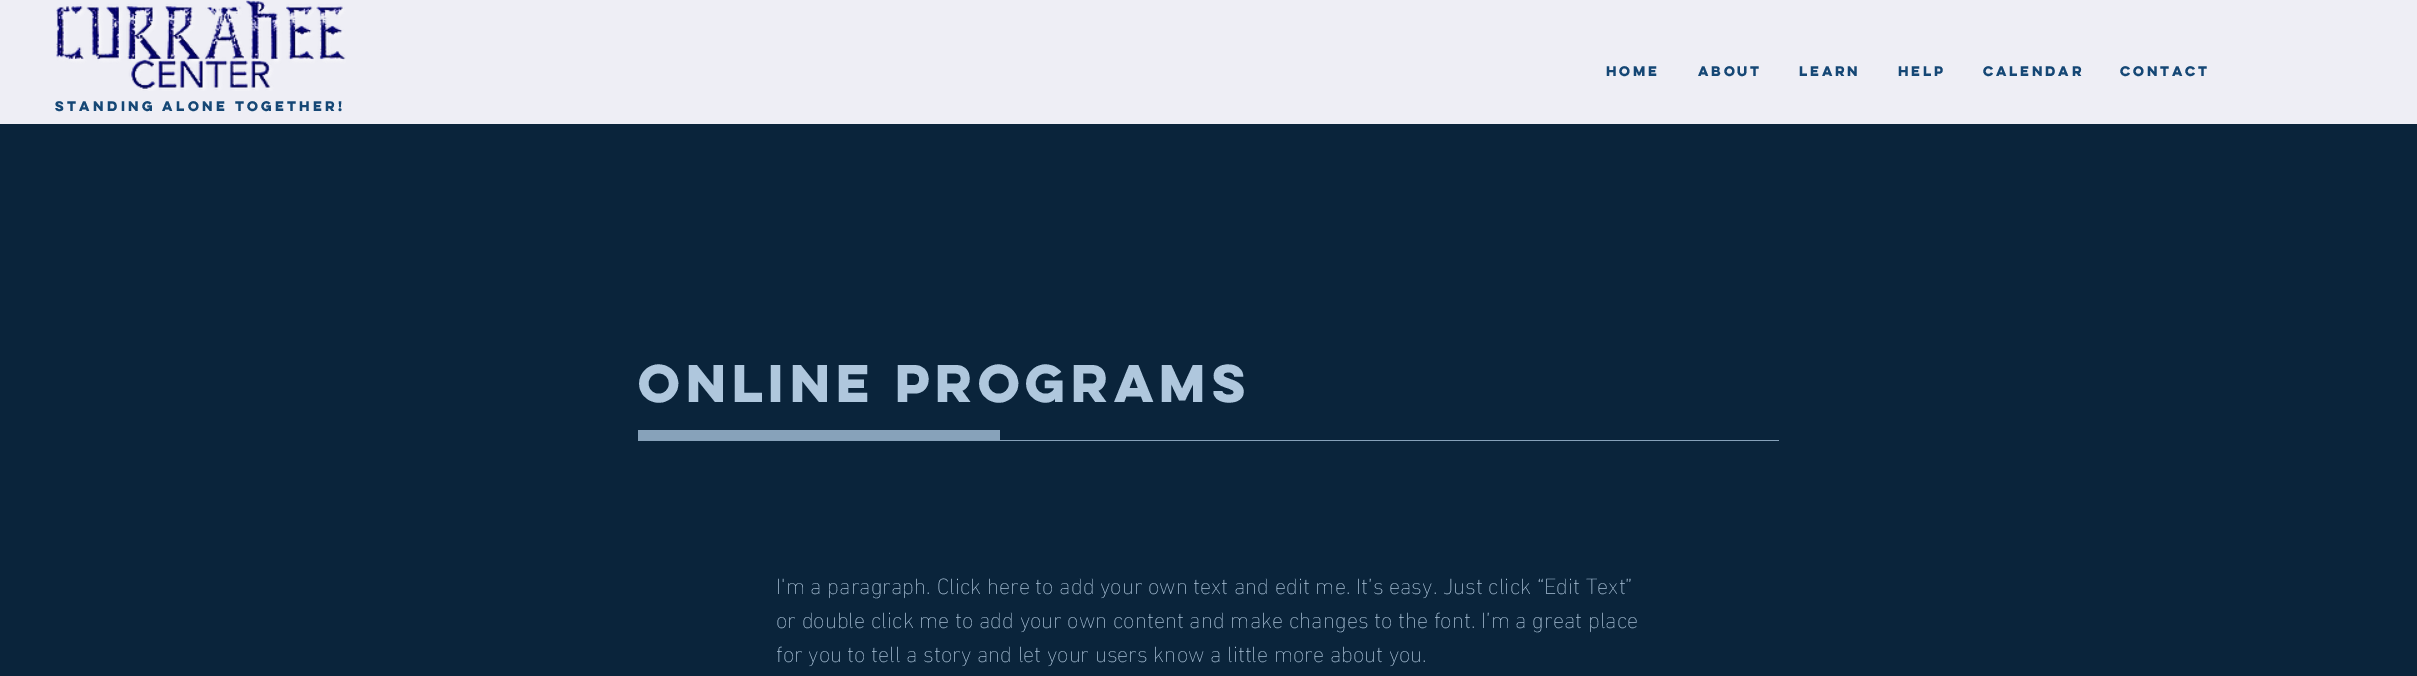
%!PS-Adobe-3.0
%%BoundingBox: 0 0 2417 676
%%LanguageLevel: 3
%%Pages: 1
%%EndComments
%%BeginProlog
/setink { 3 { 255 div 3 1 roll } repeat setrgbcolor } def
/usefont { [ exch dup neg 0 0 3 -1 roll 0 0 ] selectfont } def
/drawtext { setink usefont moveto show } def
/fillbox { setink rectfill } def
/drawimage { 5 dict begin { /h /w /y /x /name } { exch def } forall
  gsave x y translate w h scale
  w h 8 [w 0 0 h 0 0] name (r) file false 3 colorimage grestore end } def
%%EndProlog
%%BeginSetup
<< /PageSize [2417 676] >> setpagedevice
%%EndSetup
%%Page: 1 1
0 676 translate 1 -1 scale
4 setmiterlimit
0 0 2417 676 10 36 59 fillbox
0 0 2417 124 238 238 245 fillbox
(HOME) 1606 76 /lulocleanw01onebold-Bold 12.5 21 71 117 drawtext
(ABOUT) 1698 76 /lulocleanw01onebold-Bold 12.5 21 71 117 drawtext
(LEARN) 1799 76 /lulocleanw01onebold-Bold 12.5 21 71 117 drawtext
(HELP) 1898 76 /lulocleanw01onebold-Bold 12.5 21 71 117 drawtext
(Calendar) 1983 76 /lulocleanw01onebold-Bold 12.5 21 71 117 drawtext
(Contact) 2120 76 /lulocleanw01onebold-Bold 12.5 21 71 117 drawtext
(assets/img1.rgb) 56 0 290 91 drawimage
55 111 moveto 0.5 0 (Standing Alone Together!) ashow
/lulocleanw01onebold-Bold 47.5 usefont
175 199 221 setink
638 402 moveto -4.75 0 (ONLINE PROGRAMS) ashow
638 430 362 10 135 162 186 fillbox
638 440 1141 1 135 162 186 fillbox
(I'm a paragraph. Click here to add your own text and edit me. It’s easy. Just click “Edit Text”) 776 594 /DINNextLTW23-ExtraLight 22.5 175 199 221 drawtext
(or double click me to add your own content and make changes to the font. I’m a great place) 776 628 /DINNextLTW23-ExtraLight 22.5 175 199 221 drawtext
(for you to tell a story and let your users know a little more about you.) 776 662 /DINNextLTW23-ExtraLight 22.5 175 199 221 drawtext
showpage
%%EOF
